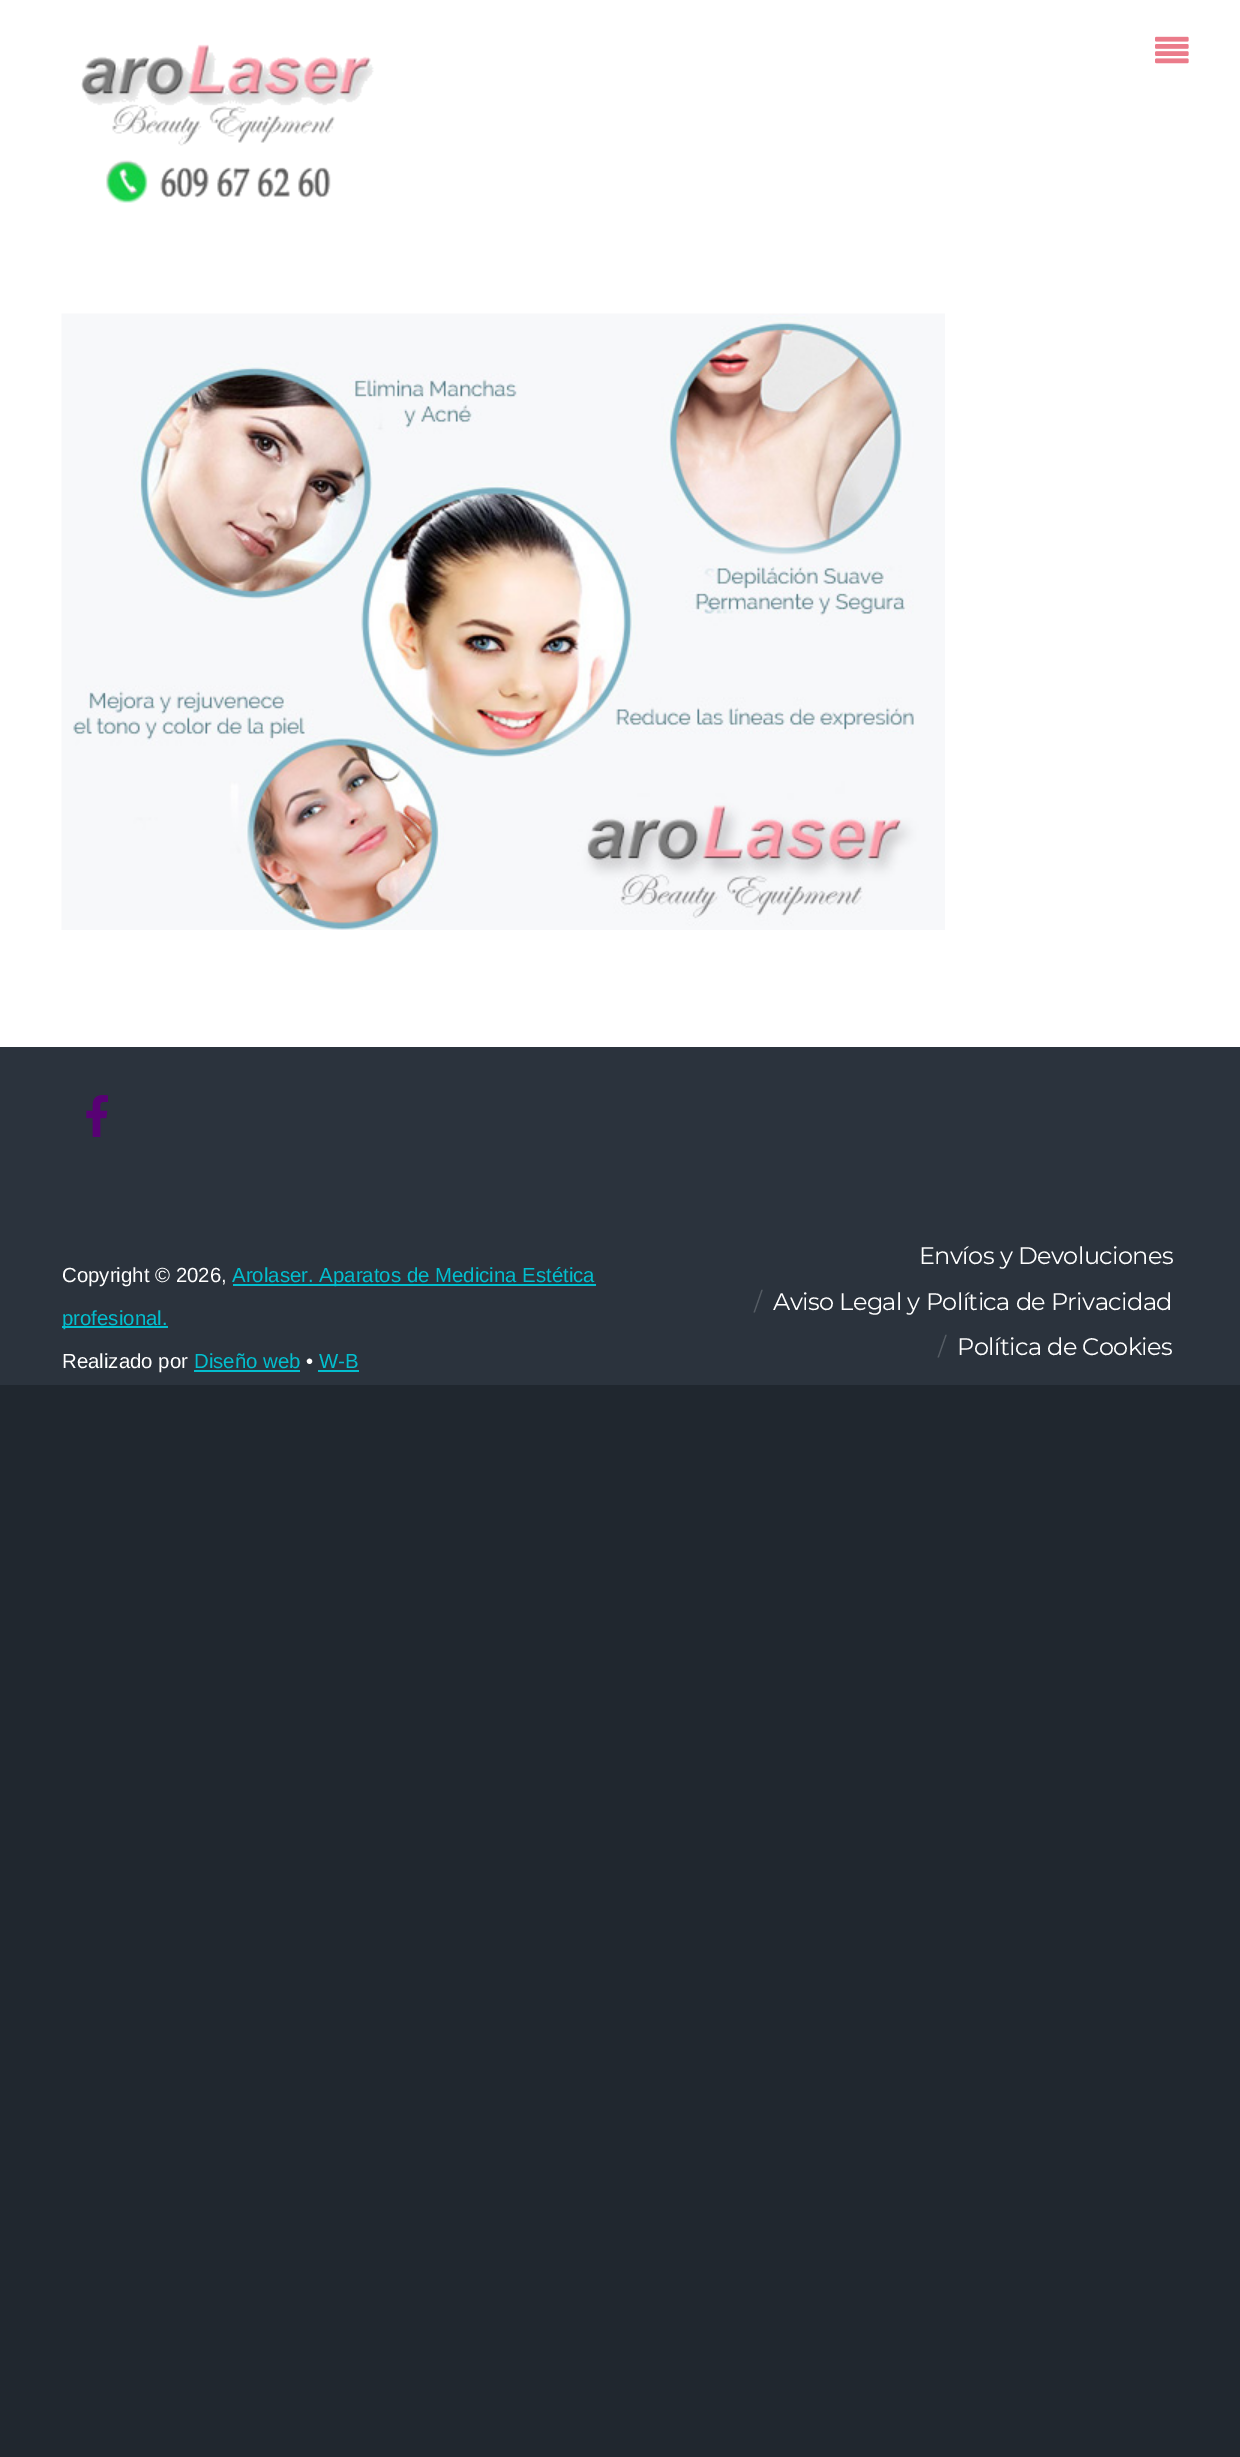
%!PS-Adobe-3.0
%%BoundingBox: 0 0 1240 2457
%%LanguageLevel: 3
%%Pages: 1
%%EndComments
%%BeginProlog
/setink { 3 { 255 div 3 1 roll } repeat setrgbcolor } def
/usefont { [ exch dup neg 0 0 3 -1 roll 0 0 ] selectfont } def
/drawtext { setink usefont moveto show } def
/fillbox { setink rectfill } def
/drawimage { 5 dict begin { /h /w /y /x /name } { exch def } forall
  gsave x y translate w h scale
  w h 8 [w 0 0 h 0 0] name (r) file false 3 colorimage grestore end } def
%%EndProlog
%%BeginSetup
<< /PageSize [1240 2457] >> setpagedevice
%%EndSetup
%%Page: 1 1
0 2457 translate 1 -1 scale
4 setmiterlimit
0 0 1240 2457 32 39 47 fillbox
0 0 1240 1047 255 255 255 fillbox
(assets/img1.rgb) 61 313 884 617 drawimage
(assets/img2.rgb) 81 44 293 159 drawimage
(assets/img3.rgb) 1155 36 34 28 drawimage
0 1047 1240 338 43 51 61 fillbox
(assets/img4.rgb) 86 1095 22 42 drawimage
(Copyright © 2026,) 62 1282 /LiberationSans-Regular 20.4 255 255 255 drawtext
233 1284 363 2 2 190 206 fillbox
(Arolaser. Aparatos de Medicina Estética) 232 1282 /LiberationSans-Regular 20.4 2 190 206 drawtext
62 1326 106 2 2 190 206 fillbox
(profesional.) 62 1325 /LiberationSans-Regular 20.4 2 190 206 drawtext
(Realizado por) 62 1368 /LiberationSans-Regular 20.4 255 255 255 drawtext
(Diseño web) 194 1368 /LiberationSans-Regular 20.4 2 190 206 drawtext
194 1370 106 2 2 190 206 fillbox
(•) 306 1368 /LiberationSans-Regular 20.4 255 255 255 drawtext
(W-B) 319 1368 /LiberationSans-Regular 20.4 2 190 206 drawtext
318 1370 41 2 2 190 206 fillbox
/Montserrat-Regular 24 usefont
255 255 255 setink
919 1264 moveto -0.6 0 (Envíos y Devoluciones) ashow
85 92 100 setink
754 1310 moveto -0.6 0 (/) ashow
255 255 255 setink
773 1310 moveto -0.6 0 (Aviso Legal y Política de Privacidad) ashow
85 92 100 setink
938 1355 moveto -0.6 0 (/) ashow
255 255 255 setink
957 1355 moveto -0.6 0 (Política de Cookies) ashow
showpage
%%EOF
